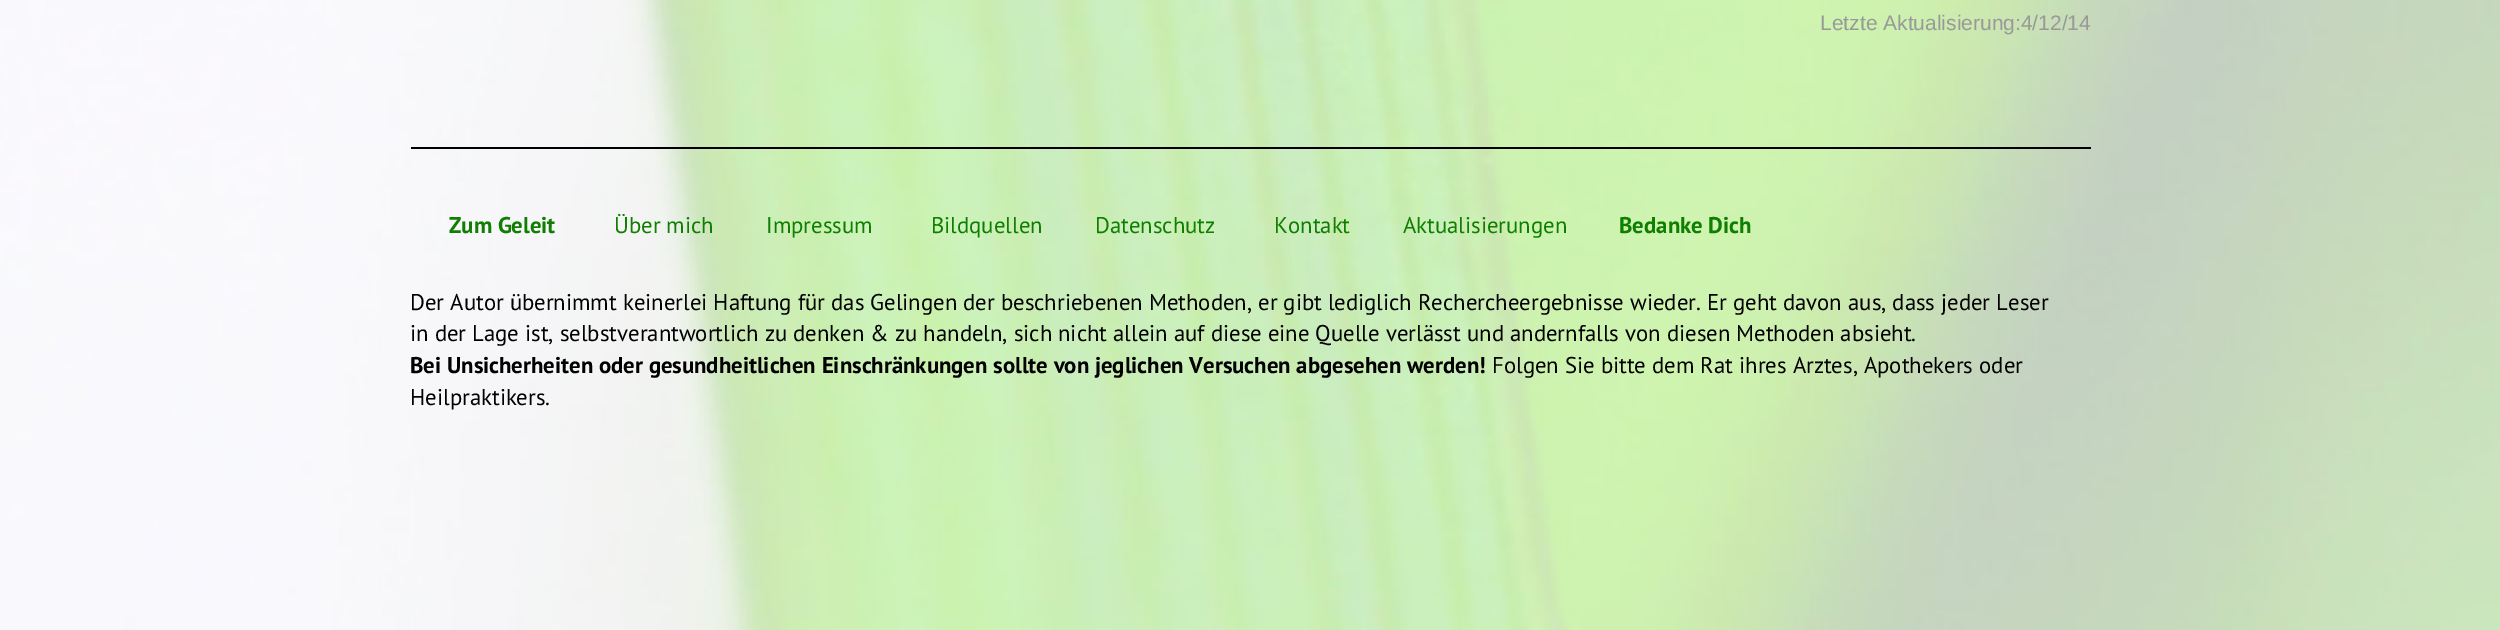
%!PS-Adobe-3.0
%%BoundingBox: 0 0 2500 630
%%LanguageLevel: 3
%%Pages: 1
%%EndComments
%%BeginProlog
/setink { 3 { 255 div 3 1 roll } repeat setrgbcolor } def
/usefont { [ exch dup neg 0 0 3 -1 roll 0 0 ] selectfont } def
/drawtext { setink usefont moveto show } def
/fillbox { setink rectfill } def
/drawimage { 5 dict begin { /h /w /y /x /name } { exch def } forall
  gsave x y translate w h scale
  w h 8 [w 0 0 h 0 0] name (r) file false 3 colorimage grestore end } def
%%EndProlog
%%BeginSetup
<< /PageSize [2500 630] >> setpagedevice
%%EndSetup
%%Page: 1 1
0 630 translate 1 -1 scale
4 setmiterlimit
0 0 2500 630 255 255 255 fillbox
(assets/img1.rgb) 0 0 2500 630 drawimage
(Letzte Aktualisierung:4/12/14) 1820 30 /LiberationSans-Regular 21 153 153 153 drawtext
411 147 1680 2 0 0 0 fillbox
(Zum Geleit) 449 233 /PTSans-Bold 22.75 14 127 0 drawtext
(Über mich) 614 233 /PTSans-Regular 22.75 14 127 0 drawtext
(Impressum) 766 233 /PTSans-Regular 22.75 14 127 0 drawtext
(Bildquellen) 931 233 /PTSans-Regular 22.75 14 127 0 drawtext
(Datenschutz) 1095 233 /PTSans-Regular 22.75 14 127 0 drawtext
(Kontakt) 1274 233 /PTSans-Regular 22.75 14 127 0 drawtext
(Aktualisierungen) 1403 233 /PTSans-Regular 22.75 14 127 0 drawtext
(Bedanke Dich) 1619 233 /PTSans-Bold 22.75 14 127 0 drawtext
(Der Autor übernimmt keinerlei Haftung für das Gelingen der beschriebenen Methoden, er gibt lediglich Rechercheergebnisse wieder. Er geht davon aus, dass jeder Leser) 410 310 /PTSans-Regular 22.75 0 0 0 drawtext
(in der Lage ist, selbstverantwortlich zu denken & zu handeln, sich nicht allein auf diese eine Quelle verlässt und andernfalls von diesen Methoden absieht.) 410 341 /PTSans-Regular 22.75 0 0 0 drawtext
(Bei Unsicherheiten oder gesundheitlichen Einschränkungen sollte von jeglichen Versuchen abgesehen werden!) 410 373 /PTSans-Bold 22.75 0 0 0 drawtext
(Folgen Sie bitte dem Rat ihres Arztes, Apothekers oder) 1492 373 /PTSans-Regular 22.75 0 0 0 drawtext
(Heilpraktikers.) 410 405 /PTSans-Regular 22.75 0 0 0 drawtext
showpage
%%EOF
